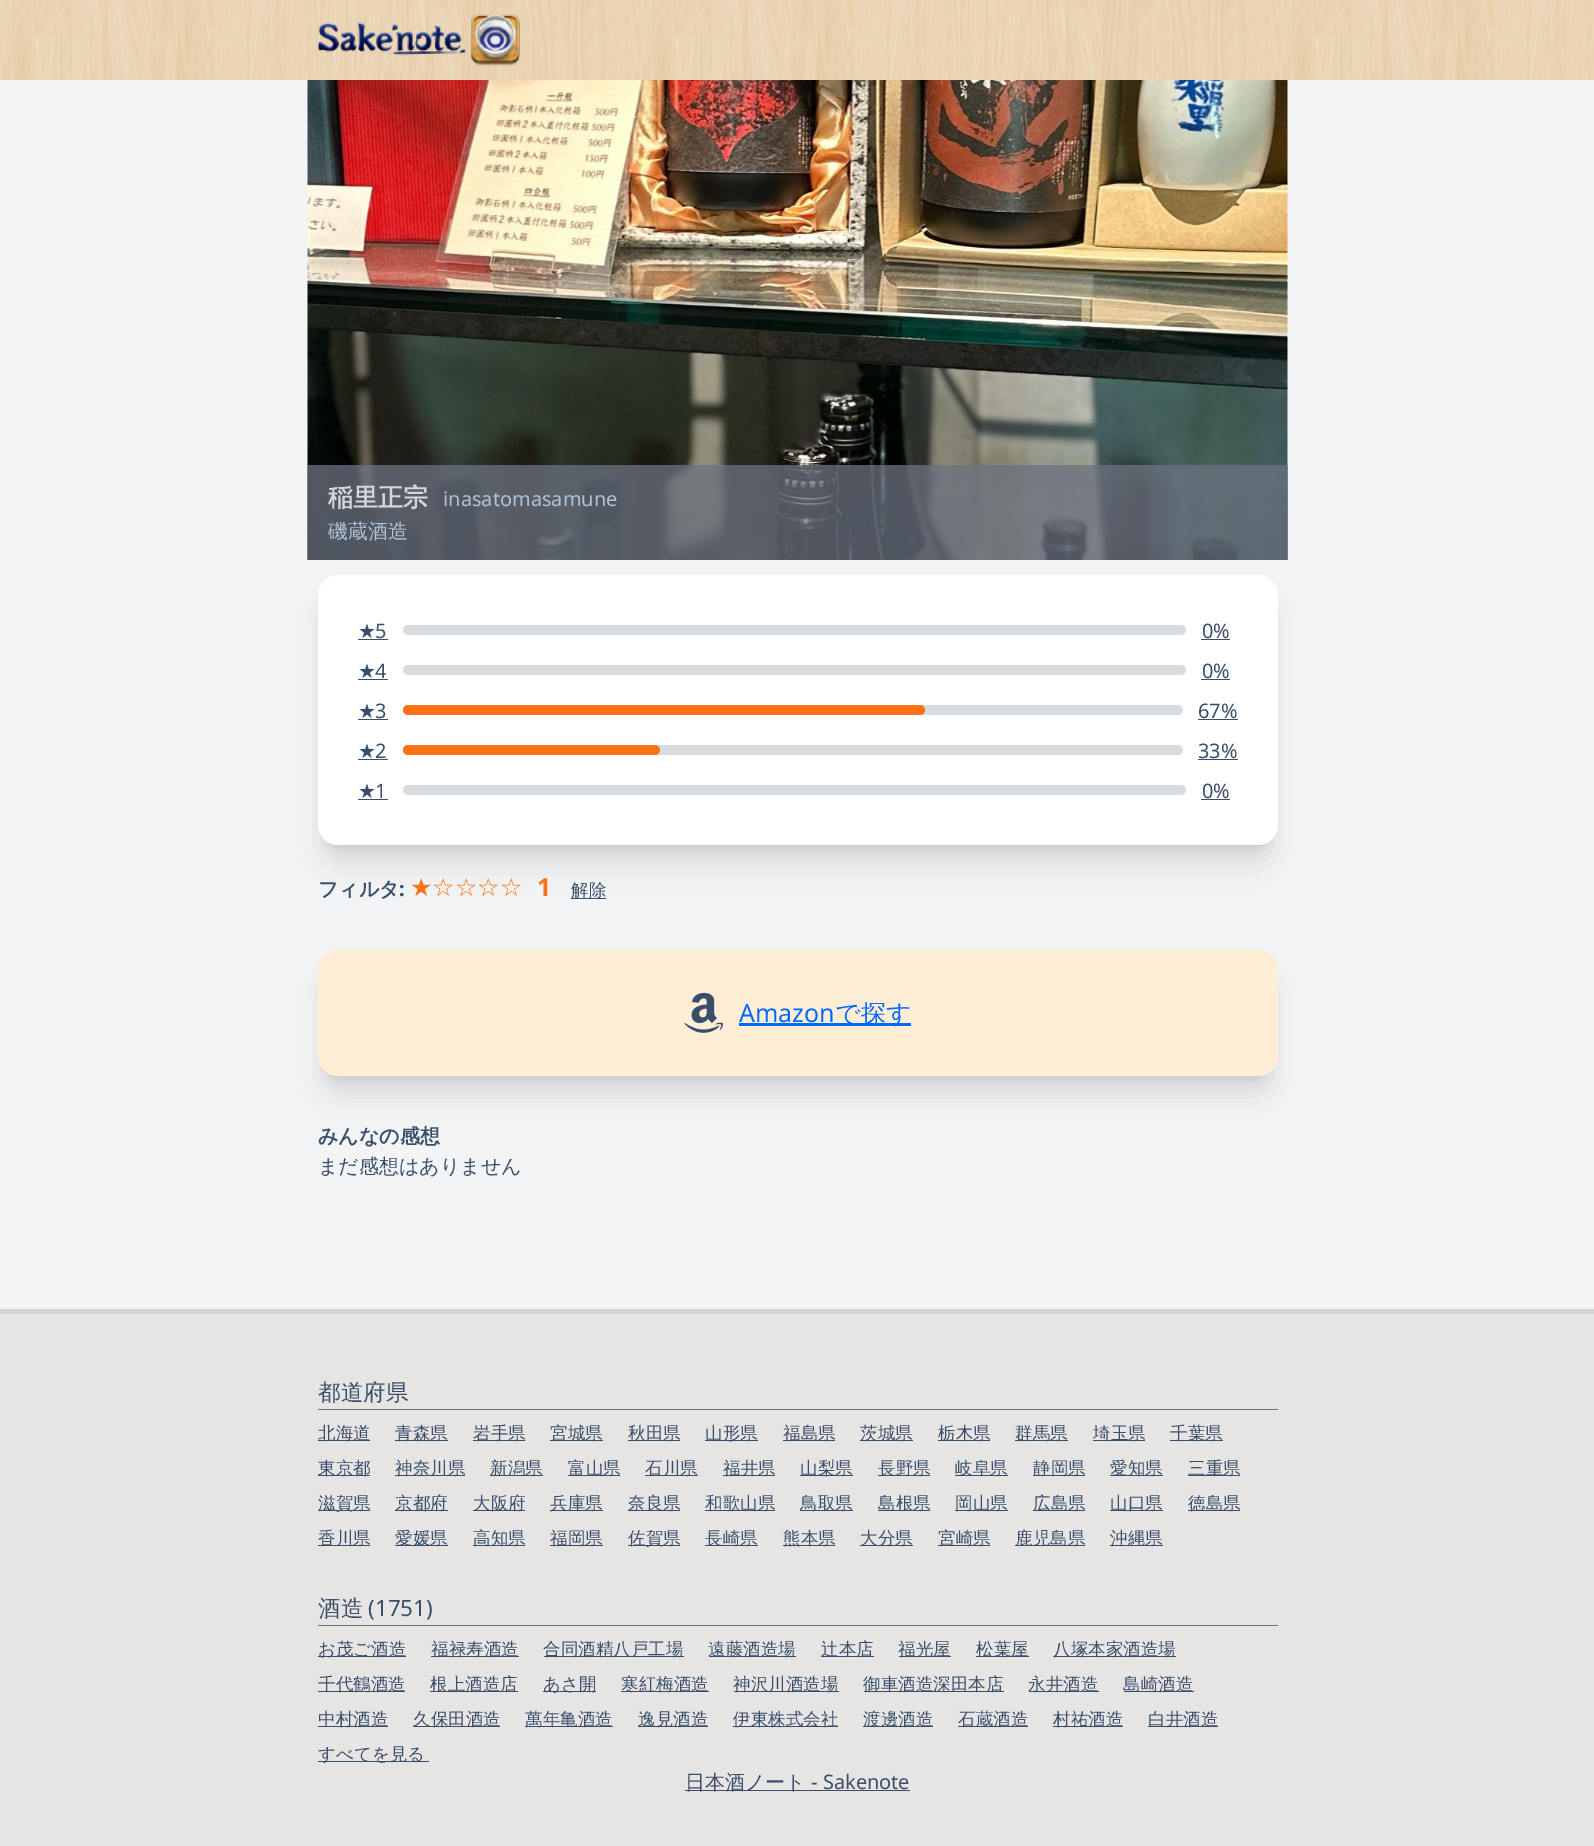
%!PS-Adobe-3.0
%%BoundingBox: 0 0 1594 1846
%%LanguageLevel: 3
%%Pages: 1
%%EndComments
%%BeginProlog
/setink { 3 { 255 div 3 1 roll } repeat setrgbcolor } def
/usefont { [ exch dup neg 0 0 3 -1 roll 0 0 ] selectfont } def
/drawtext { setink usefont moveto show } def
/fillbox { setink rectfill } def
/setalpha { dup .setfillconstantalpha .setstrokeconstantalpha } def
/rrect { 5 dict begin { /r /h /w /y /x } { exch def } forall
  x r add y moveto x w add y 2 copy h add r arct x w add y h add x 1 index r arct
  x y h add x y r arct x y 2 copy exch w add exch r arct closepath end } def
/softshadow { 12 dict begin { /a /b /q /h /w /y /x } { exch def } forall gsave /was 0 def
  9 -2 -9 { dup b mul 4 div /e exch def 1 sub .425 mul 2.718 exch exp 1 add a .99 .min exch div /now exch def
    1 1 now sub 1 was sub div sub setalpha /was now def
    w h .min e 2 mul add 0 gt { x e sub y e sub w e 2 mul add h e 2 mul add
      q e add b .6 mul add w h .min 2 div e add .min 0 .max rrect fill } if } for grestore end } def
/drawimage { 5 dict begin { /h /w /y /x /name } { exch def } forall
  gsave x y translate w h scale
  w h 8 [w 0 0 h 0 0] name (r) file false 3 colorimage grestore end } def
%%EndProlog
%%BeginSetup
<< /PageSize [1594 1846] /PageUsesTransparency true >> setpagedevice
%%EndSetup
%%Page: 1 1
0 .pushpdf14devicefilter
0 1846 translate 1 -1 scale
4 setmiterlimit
0 0 1594 1846 243 244 246 fillbox
(assets/img1.rgb) 0 0 1594 80 drawimage
(assets/img2.rgb) 317 14 203 52 drawimage
(assets/img3.rgb) 307 80 981 480 drawimage
0.75 setalpha
308 465 980 95 107 114 128 fillbox
1 setalpha
(稲里正宗) 328 506 /WenQuanYiZenHei-Bold 25 213 214 216 drawtext
(inasatomasamune) 443 506 /NotoSans-Regular 20 176 194 216 drawtext
(磯蔵酒造) 328 538 /WenQuanYiZenHei-Medium 20 176 194 216 drawtext
0 0 0 setink
325 593 945 255 13 6 0.1 softshadow
571 898 35 1 57 78 106 fillbox
0 0 0 setink
324 606 947 258 14 15.5 0.1 softshadow
255 255 255 setink
318 575 960 270 20 rrect fill
(★) 358 638 /DejaVuSans-Regular 20 57 78 106 drawtext
358 639 30 1 57 78 106 fillbox
(5) 375 638 /NotoSans-Regular 20 57 78 106 drawtext
215 220 225 setink
403 625 783 10 5 rrect fill
(0%) 1202 638 /NotoSans-Regular 20 57 78 106 drawtext
1201 639 29 1 57 78 106 fillbox
(★) 358 678 /DejaVuSans-Regular 20 57 78 106 drawtext
358 679 30 1 57 78 106 fillbox
(4) 375 678 /NotoSans-Regular 20 57 78 106 drawtext
215 220 225 setink
403 665 783 10 5 rrect fill
(0%) 1202 678 /NotoSans-Regular 20 57 78 106 drawtext
1201 679 29 1 57 78 106 fillbox
(★) 358 718 /DejaVuSans-Regular 20 57 78 106 drawtext
358 719 30 1 57 78 106 fillbox
(3) 375 718 /NotoSans-Regular 20 57 78 106 drawtext
215 220 225 setink
403 705 780 10 5 rrect fill
249 115 22 setink
403 705 522 10 5 rrect fill
(67%) 1198 718 /NotoSans-Regular 20 57 78 106 drawtext
1198 719 40 1 57 78 106 fillbox
(★) 358 758 /DejaVuSans-Regular 20 57 78 106 drawtext
358 759 30 1 57 78 106 fillbox
(2) 375 758 /NotoSans-Regular 20 57 78 106 drawtext
215 220 225 setink
403 745 780 10 5 rrect fill
249 115 22 setink
403 745 257 10 5 rrect fill
(33%) 1198 758 /NotoSans-Regular 20 57 78 106 drawtext
1198 759 40 1 57 78 106 fillbox
(★) 358 798 /DejaVuSans-Regular 20 57 78 106 drawtext
358 799 30 1 57 78 106 fillbox
(1) 375 798 /NotoSans-Regular 20 57 78 106 drawtext
215 220 225 setink
403 785 783 10 5 rrect fill
(0%) 1202 798 /NotoSans-Regular 20 57 78 106 drawtext
1201 799 29 1 57 78 106 fillbox
(フィルタ) 318 896 /WenQuanYiZenHei-Bold 20 57 78 106 drawtext
(:) 399 896 /NotoSans-Bold 20 57 78 106 drawtext
(★☆☆☆☆) 410 896 /DejaVuSans-Regular 25 249 115 22 drawtext
(1) 537 896 /NotoSans-Bold 25 249 115 22 drawtext
(解除) 571 896 /WenQuanYiZenHei-Medium 17.5 57 78 106 drawtext
0 0 0 setink
325 968 945 111 13 6 0.1 softshadow
324 981 947 114 14 15.5 0.1 softshadow
255 237 213 setink
318 950 960 126 20 rrect fill
(assets/img4.rgb) 684 992 40 41 drawimage
(Amazon) 739 1022 /NotoSans-Regular 25 0 105 255 drawtext
739 1023 172 3 0 105 255 fillbox
(で探す) 835 1022 /WenQuanYiZenHei-Medium 25 0 105 255 drawtext
(みんなの感想) 318 1143 /WenQuanYiZenHei-Bold 20 57 78 106 drawtext
(まだ感想はありません) 318 1173 /WenQuanYiZenHei-Medium 20 57 78 106 drawtext
0 1314 1594 532 231 229 228 fillbox
0 1309 1594 5 214 211 209 fillbox
318 1409 960 1 107 114 128 fillbox
(都道府県) 318 1400 /WenQuanYiZenHei-Medium 22.5 57 78 106 drawtext
318 1440 52 1 57 78 106 fillbox
(北海道) 318 1439 /WenQuanYiZenHei-Medium 17.5 57 78 106 drawtext
395 1440 53 1 57 78 106 fillbox
(青森県) 395 1439 /WenQuanYiZenHei-Medium 17.5 57 78 106 drawtext
473 1440 52 1 57 78 106 fillbox
(岩手県) 473 1439 /WenQuanYiZenHei-Medium 17.5 57 78 106 drawtext
550 1440 53 1 57 78 106 fillbox
(宮城県) 550 1439 /WenQuanYiZenHei-Medium 17.5 57 78 106 drawtext
628 1440 52 1 57 78 106 fillbox
(秋田県) 628 1439 /WenQuanYiZenHei-Medium 17.5 57 78 106 drawtext
705 1440 53 1 57 78 106 fillbox
(山形県) 705 1439 /WenQuanYiZenHei-Medium 17.5 57 78 106 drawtext
783 1440 52 1 57 78 106 fillbox
(福島県) 783 1439 /WenQuanYiZenHei-Medium 17.5 57 78 106 drawtext
860 1440 53 1 57 78 106 fillbox
(茨城県) 860 1439 /WenQuanYiZenHei-Medium 17.5 57 78 106 drawtext
938 1440 52 1 57 78 106 fillbox
(栃木県) 938 1439 /WenQuanYiZenHei-Medium 17.5 57 78 106 drawtext
1015 1440 53 1 57 78 106 fillbox
(群馬県) 1015 1439 /WenQuanYiZenHei-Medium 17.5 57 78 106 drawtext
1093 1440 52 1 57 78 106 fillbox
(埼玉県) 1093 1439 /WenQuanYiZenHei-Medium 17.5 57 78 106 drawtext
1170 1440 53 1 57 78 106 fillbox
(千葉県) 1170 1439 /WenQuanYiZenHei-Medium 17.5 57 78 106 drawtext
318 1475 52 1 57 78 106 fillbox
(東京都) 318 1474 /WenQuanYiZenHei-Medium 17.5 57 78 106 drawtext
395 1475 70 1 57 78 106 fillbox
(神奈川県) 395 1474 /WenQuanYiZenHei-Medium 17.5 57 78 106 drawtext
490 1475 53 1 57 78 106 fillbox
(新潟県) 490 1474 /WenQuanYiZenHei-Medium 17.5 57 78 106 drawtext
568 1475 52 1 57 78 106 fillbox
(富山県) 568 1474 /WenQuanYiZenHei-Medium 17.5 57 78 106 drawtext
645 1475 53 1 57 78 106 fillbox
(石川県) 645 1474 /WenQuanYiZenHei-Medium 17.5 57 78 106 drawtext
723 1475 52 1 57 78 106 fillbox
(福井県) 723 1474 /WenQuanYiZenHei-Medium 17.5 57 78 106 drawtext
800 1475 53 1 57 78 106 fillbox
(山梨県) 800 1474 /WenQuanYiZenHei-Medium 17.5 57 78 106 drawtext
878 1475 52 1 57 78 106 fillbox
(長野県) 878 1474 /WenQuanYiZenHei-Medium 17.5 57 78 106 drawtext
955 1475 53 1 57 78 106 fillbox
(岐阜県) 955 1474 /WenQuanYiZenHei-Medium 17.5 57 78 106 drawtext
1033 1475 52 1 57 78 106 fillbox
(静岡県) 1033 1474 /WenQuanYiZenHei-Medium 17.5 57 78 106 drawtext
1110 1475 53 1 57 78 106 fillbox
(愛知県) 1110 1474 /WenQuanYiZenHei-Medium 17.5 57 78 106 drawtext
1188 1475 52 1 57 78 106 fillbox
(三重県) 1188 1474 /WenQuanYiZenHei-Medium 17.5 57 78 106 drawtext
318 1510 52 1 57 78 106 fillbox
(滋賀県) 318 1509 /WenQuanYiZenHei-Medium 17.5 57 78 106 drawtext
395 1510 53 1 57 78 106 fillbox
(京都府) 395 1509 /WenQuanYiZenHei-Medium 17.5 57 78 106 drawtext
473 1510 52 1 57 78 106 fillbox
(大阪府) 473 1509 /WenQuanYiZenHei-Medium 17.5 57 78 106 drawtext
550 1510 53 1 57 78 106 fillbox
(兵庫県) 550 1509 /WenQuanYiZenHei-Medium 17.5 57 78 106 drawtext
628 1510 52 1 57 78 106 fillbox
(奈良県) 628 1509 /WenQuanYiZenHei-Medium 17.5 57 78 106 drawtext
705 1510 70 1 57 78 106 fillbox
(和歌山県) 705 1509 /WenQuanYiZenHei-Medium 17.5 57 78 106 drawtext
800 1510 53 1 57 78 106 fillbox
(鳥取県) 800 1509 /WenQuanYiZenHei-Medium 17.5 57 78 106 drawtext
878 1510 52 1 57 78 106 fillbox
(島根県) 878 1509 /WenQuanYiZenHei-Medium 17.5 57 78 106 drawtext
955 1510 53 1 57 78 106 fillbox
(岡山県) 955 1509 /WenQuanYiZenHei-Medium 17.5 57 78 106 drawtext
1033 1510 52 1 57 78 106 fillbox
(広島県) 1033 1509 /WenQuanYiZenHei-Medium 17.5 57 78 106 drawtext
1110 1510 53 1 57 78 106 fillbox
(山口県) 1110 1509 /WenQuanYiZenHei-Medium 17.5 57 78 106 drawtext
1188 1510 52 1 57 78 106 fillbox
(徳島県) 1188 1509 /WenQuanYiZenHei-Medium 17.5 57 78 106 drawtext
318 1545 52 1 57 78 106 fillbox
(香川県) 318 1544 /WenQuanYiZenHei-Medium 17.5 57 78 106 drawtext
395 1545 53 1 57 78 106 fillbox
(愛媛県) 395 1544 /WenQuanYiZenHei-Medium 17.5 57 78 106 drawtext
473 1545 52 1 57 78 106 fillbox
(高知県) 473 1544 /WenQuanYiZenHei-Medium 17.5 57 78 106 drawtext
550 1545 53 1 57 78 106 fillbox
(福岡県) 550 1544 /WenQuanYiZenHei-Medium 17.5 57 78 106 drawtext
628 1545 52 1 57 78 106 fillbox
(佐賀県) 628 1544 /WenQuanYiZenHei-Medium 17.5 57 78 106 drawtext
705 1545 53 1 57 78 106 fillbox
(長崎県) 705 1544 /WenQuanYiZenHei-Medium 17.5 57 78 106 drawtext
783 1545 52 1 57 78 106 fillbox
(熊本県) 783 1544 /WenQuanYiZenHei-Medium 17.5 57 78 106 drawtext
860 1545 53 1 57 78 106 fillbox
(大分県) 860 1544 /WenQuanYiZenHei-Medium 17.5 57 78 106 drawtext
938 1545 52 1 57 78 106 fillbox
(宮崎県) 938 1544 /WenQuanYiZenHei-Medium 17.5 57 78 106 drawtext
1015 1545 70 1 57 78 106 fillbox
(鹿児島県) 1015 1544 /WenQuanYiZenHei-Medium 17.5 57 78 106 drawtext
1110 1545 53 1 57 78 106 fillbox
(沖縄県) 1110 1544 /WenQuanYiZenHei-Medium 17.5 57 78 106 drawtext
318 1625 960 1 107 114 128 fillbox
(酒造) 318 1616 /WenQuanYiZenHei-Medium 22.5 57 78 106 drawtext
(\(1751\)) 368 1616 /NotoSans-Regular 22.5 57 78 106 drawtext
318 1656 88 1 57 78 106 fillbox
(お茂ご酒造) 318 1655 /WenQuanYiZenHei-Medium 17.5 57 78 106 drawtext
431 1656 88 1 57 78 106 fillbox
(福禄寿酒造) 431 1655 /WenQuanYiZenHei-Medium 17.5 57 78 106 drawtext
544 1656 140 1 57 78 106 fillbox
(合同酒精八戸工場) 543 1655 /WenQuanYiZenHei-Medium 17.5 57 78 106 drawtext
709 1656 87 1 57 78 106 fillbox
(遠藤酒造場) 708 1655 /WenQuanYiZenHei-Medium 17.5 57 78 106 drawtext
821 1656 53 1 57 78 106 fillbox
(辻本店) 821 1655 /WenQuanYiZenHei-Medium 17.5 57 78 106 drawtext
899 1656 52 1 57 78 106 fillbox
(福光屋) 898 1655 /WenQuanYiZenHei-Medium 17.5 57 78 106 drawtext
976 1656 53 1 57 78 106 fillbox
(松葉屋) 976 1655 /WenQuanYiZenHei-Medium 17.5 57 78 106 drawtext
1054 1656 122 1 57 78 106 fillbox
(八塚本家酒造場) 1053 1655 /WenQuanYiZenHei-Medium 17.5 57 78 106 drawtext
318 1691 87 1 57 78 106 fillbox
(千代鶴酒造) 318 1690 /WenQuanYiZenHei-Medium 17.5 57 78 106 drawtext
430 1691 88 1 57 78 106 fillbox
(根上酒造店) 430 1690 /WenQuanYiZenHei-Medium 17.5 57 78 106 drawtext
543 1691 53 1 57 78 106 fillbox
(あさ開) 543 1690 /WenQuanYiZenHei-Medium 17.5 57 78 106 drawtext
621 1691 88 1 57 78 106 fillbox
(寒紅梅酒造) 621 1690 /WenQuanYiZenHei-Medium 17.5 57 78 106 drawtext
734 1691 105 1 57 78 106 fillbox
(神沢川酒造場) 733 1690 /WenQuanYiZenHei-Medium 17.5 57 78 106 drawtext
864 1691 140 1 57 78 106 fillbox
(御車酒造深田本店) 863 1690 /WenQuanYiZenHei-Medium 17.5 57 78 106 drawtext
1029 1691 70 1 57 78 106 fillbox
(永井酒造) 1028 1690 /WenQuanYiZenHei-Medium 17.5 57 78 106 drawtext
1124 1691 70 1 57 78 106 fillbox
(島崎酒造) 1123 1690 /WenQuanYiZenHei-Medium 17.5 57 78 106 drawtext
318 1726 70 1 57 78 106 fillbox
(中村酒造) 318 1725 /WenQuanYiZenHei-Medium 17.5 57 78 106 drawtext
413 1726 87 1 57 78 106 fillbox
(久保田酒造) 413 1725 /WenQuanYiZenHei-Medium 17.5 57 78 106 drawtext
525 1726 88 1 57 78 106 fillbox
(萬年亀酒造) 525 1725 /WenQuanYiZenHei-Medium 17.5 57 78 106 drawtext
638 1726 70 1 57 78 106 fillbox
(逸見酒造) 638 1725 /WenQuanYiZenHei-Medium 17.5 57 78 106 drawtext
733 1726 105 1 57 78 106 fillbox
(伊東株式会社) 733 1725 /WenQuanYiZenHei-Medium 17.5 57 78 106 drawtext
863 1726 70 1 57 78 106 fillbox
(渡邊酒造) 863 1725 /WenQuanYiZenHei-Medium 17.5 57 78 106 drawtext
958 1726 70 1 57 78 106 fillbox
(石蔵酒造) 958 1725 /WenQuanYiZenHei-Medium 17.5 57 78 106 drawtext
1053 1726 70 1 57 78 106 fillbox
(村祐酒造) 1053 1725 /WenQuanYiZenHei-Medium 17.5 57 78 106 drawtext
1148 1726 70 1 57 78 106 fillbox
(白井酒造) 1148 1725 /WenQuanYiZenHei-Medium 17.5 57 78 106 drawtext
318 1761 111 1 57 78 106 fillbox
(すべてを見る) 318 1760 /WenQuanYiZenHei-Medium 17.5 57 78 106 drawtext
685 1790 225 1 57 78 106 fillbox
(日本酒ノート) 685 1789 /WenQuanYiZenHei-Medium 20 57 78 106 drawtext
(- Sakenote) 811 1789 /NotoSans-Regular 20 57 78 106 drawtext
.poppdf14devicefilter showpage
%%EOF
